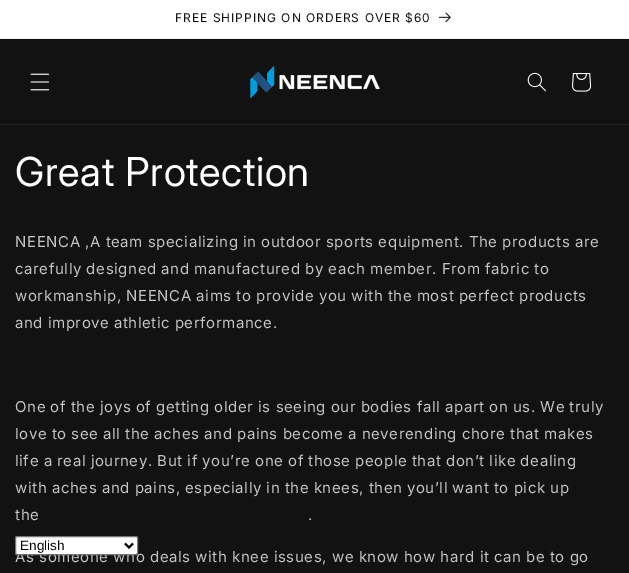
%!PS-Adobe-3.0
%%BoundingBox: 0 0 629 573
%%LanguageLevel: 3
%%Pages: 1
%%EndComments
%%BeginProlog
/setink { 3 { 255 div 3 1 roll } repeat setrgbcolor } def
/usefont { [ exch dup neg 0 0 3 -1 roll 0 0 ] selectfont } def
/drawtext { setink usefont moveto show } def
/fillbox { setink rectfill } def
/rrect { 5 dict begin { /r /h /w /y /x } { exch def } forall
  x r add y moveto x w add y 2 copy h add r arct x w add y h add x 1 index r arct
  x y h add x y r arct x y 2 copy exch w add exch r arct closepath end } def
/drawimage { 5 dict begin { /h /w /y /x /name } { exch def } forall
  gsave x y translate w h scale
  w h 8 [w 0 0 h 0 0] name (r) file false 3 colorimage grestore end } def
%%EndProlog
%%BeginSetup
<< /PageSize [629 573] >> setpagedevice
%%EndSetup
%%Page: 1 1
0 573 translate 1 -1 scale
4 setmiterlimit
0 0 629 573 18 18 18 fillbox
0 0 629 38 255 255 255 fillbox
0 38 629 1 236 236 236 fillbox
/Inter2-Regular 12 usefont
18 18 18 setink
175 22 moveto 1 0 (FREE SHIPPING ON ORDERS OVER $60) ashow
(assets/img1.rgb) 439 12 12 11 drawimage
0 124 629 1 37 37 37 fillbox
(assets/img2.rgb) 30 73 20 18 drawimage
(assets/img3.rgb) 250 65 130 34 drawimage
(assets/img4.rgb) 527 72 19 20 drawimage
(assets/img5.rgb) 572 73 20 19 drawimage
/Inter-Regular 40 usefont
255 255 255 setink
15 186 moveto 0.6 0 (Great Protection) ashow
/Inter2-Regular 15 usefont
196 196 196 setink
15 247 moveto -0.25 0 32 0.6 0 (NEENCA ,A team specializing in outdoor sports equipment. The products are) awidthshow
15 274 moveto -0.25 0 32 0.6 0 (carefully designed and manufactured by each member. From fabric to) awidthshow
15 301 moveto -0.25 0 32 0.6 0 (workmanship, NEENCA aims to provide you with the most perfect products) awidthshow
15 328 moveto -0.5 0 32 0.6 0 (and improve athletic performance.) awidthshow
15 412 moveto -0.2 0 32 0.6 0 (One of the joys of getting older is seeing our bodies fall apart on us. We truly) awidthshow
15 439 moveto -0.25 0 32 0.6 0 (love to see all the aches and pains become a neverending chore that makes) awidthshow
15 466 moveto -0.25 0 32 0.6 0 (life a real journey. But if you’re one of those people that don’t like dealing) awidthshow
15 493 moveto -0.25 0 32 0.6 0 (with aches and pains, especially in the knees, then you’ll want to pick up) awidthshow
15 520 moveto 0.6 0 (the) ashow
308 520 moveto 0.6 0 (.) ashow
15 562 moveto -0.2 0 32 0.6 0 (As someone who deals with knee issues, we know how hard it can be to go) awidthshow
255 255 255 setink
15.5 536.5 122 18 1.5 rrect gsave fill grestore
118 118 118 setink
stroke
0 0 0 setink
2 setlinewidth
125 543.5 moveto 129 547.5 lineto 133 543.5 lineto stroke
(English) 20 550 /LiberationSans-Regular 13.5 0 0 0 drawtext
showpage
%%EOF
